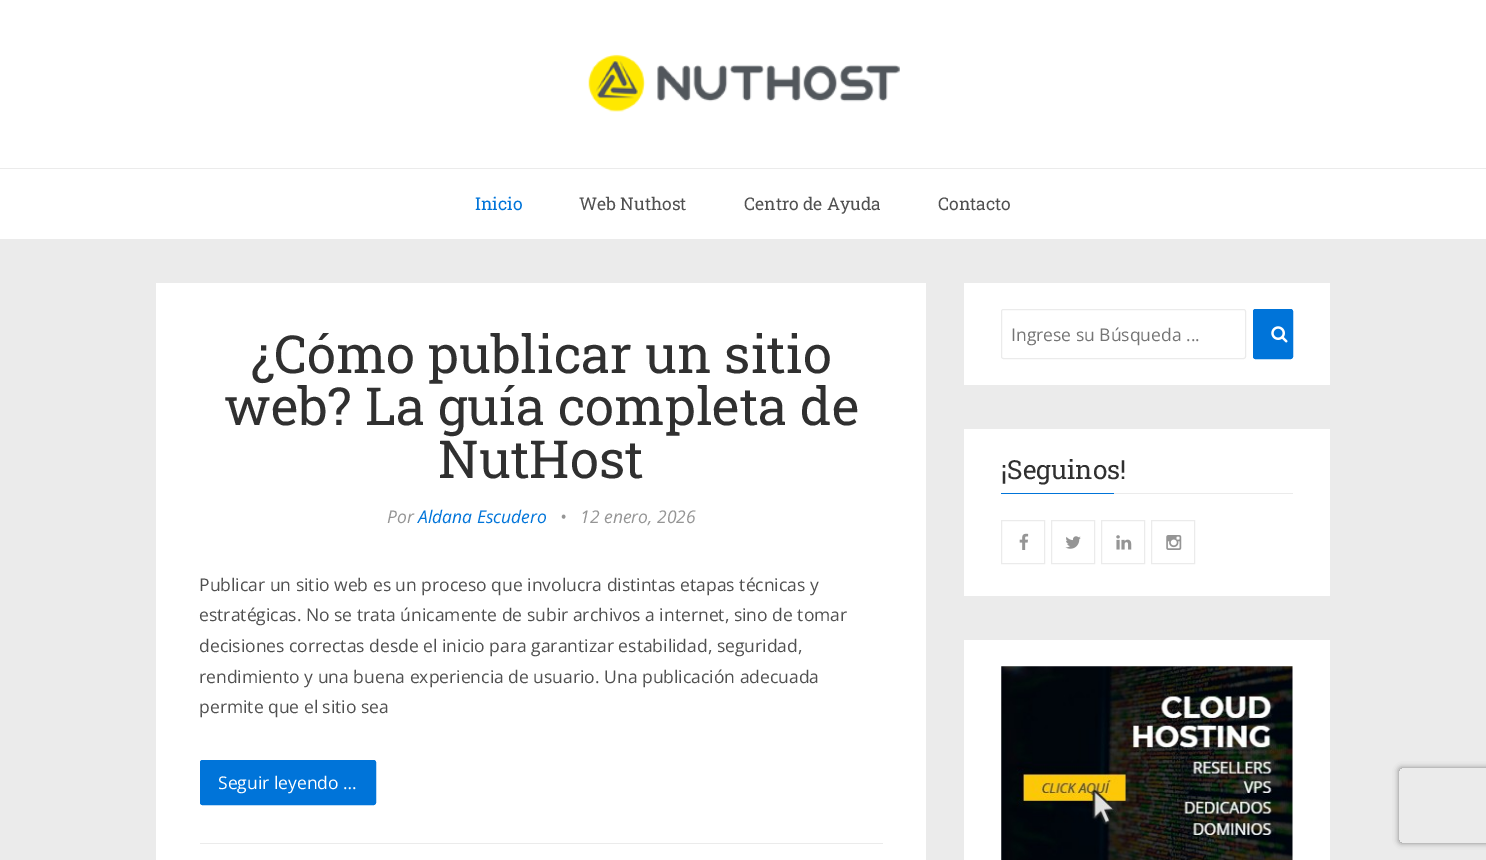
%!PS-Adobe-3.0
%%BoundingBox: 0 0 1486 860
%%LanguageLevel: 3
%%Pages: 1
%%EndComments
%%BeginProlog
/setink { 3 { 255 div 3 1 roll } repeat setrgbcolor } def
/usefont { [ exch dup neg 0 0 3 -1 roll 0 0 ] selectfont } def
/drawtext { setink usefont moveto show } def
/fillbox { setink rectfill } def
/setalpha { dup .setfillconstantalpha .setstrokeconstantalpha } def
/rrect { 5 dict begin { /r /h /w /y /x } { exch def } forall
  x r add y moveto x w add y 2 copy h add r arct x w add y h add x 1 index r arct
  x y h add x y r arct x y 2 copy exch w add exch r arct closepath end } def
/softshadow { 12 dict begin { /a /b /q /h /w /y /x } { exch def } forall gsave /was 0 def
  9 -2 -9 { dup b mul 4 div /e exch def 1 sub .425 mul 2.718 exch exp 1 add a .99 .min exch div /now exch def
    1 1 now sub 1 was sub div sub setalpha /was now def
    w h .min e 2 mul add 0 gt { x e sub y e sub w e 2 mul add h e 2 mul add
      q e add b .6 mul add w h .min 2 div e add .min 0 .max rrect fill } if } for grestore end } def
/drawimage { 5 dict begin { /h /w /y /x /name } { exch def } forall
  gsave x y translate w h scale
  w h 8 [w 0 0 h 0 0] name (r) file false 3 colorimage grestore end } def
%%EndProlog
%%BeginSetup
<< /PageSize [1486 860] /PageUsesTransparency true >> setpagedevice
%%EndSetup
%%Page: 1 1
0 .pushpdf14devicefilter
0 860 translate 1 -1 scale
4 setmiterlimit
0 0 1486 860 235 235 235 fillbox
0 0 1486 168 255 255 255 fillbox
(assets/img1.rgb) 588 54 312 58 drawimage
0 169 1486 70 255 255 255 fillbox
(Inicio) 475 210 /RobotoSlab-Regular 17.5 0 116 217 drawtext
(Web Nuthost) 579 210 /RobotoSlab-Regular 17.5 80 80 80 drawtext
(Centro de Ayuda) 744 210 /RobotoSlab-Regular 17.5 80 80 80 drawtext
(Contacto) 938 210 /RobotoSlab-Regular 17.5 80 80 80 drawtext
156 283 770 577 255 255 255 fillbox
(¿Cómo publicar un sitio) 251 373 /RobotoSlab-Regular 52.5 48 48 48 drawtext
(web? La guía completa de) 224 425 /RobotoSlab-Regular 52.5 48 48 48 drawtext
(NutHost) 438 478 /RobotoSlab-Regular 52.5 48 48 48 drawtext
(Por) 387 523 /OpenSans-Italic 17.5 149 149 149 drawtext
(Aldana Escudero) 418 523 /OpenSans-Italic 17.5 0 116 217 drawtext
(•) 560 523 /OpenSans-Italic 17.5 149 149 149 drawtext
(12 enero, 2026) 580 523 /OpenSans-Italic 17.5 149 149 149 drawtext
(Publicar un sitio web es un proceso que involucra distintas etapas técnicas y) 199 591 /OpenSans-Regular 17.5 80 80 80 drawtext
(estratégicas. No se trata únicamente de subir archivos a internet, sino de tomar) 199 621 /OpenSans-Regular 17.5 80 80 80 drawtext
(decisiones correctas desde el inicio para garantizar estabilidad, seguridad,) 199 652 /OpenSans-Regular 17.5 80 80 80 drawtext
(rendimiento y una buena experiencia de usuario. Una publicación adecuada) 199 683 /OpenSans-Regular 17.5 80 80 80 drawtext
(permite que el sitio sea) 199 713 /OpenSans-Regular 17.5 80 80 80 drawtext
0 116 217 setink
200.5 760.5 175 44 2 rrect gsave fill grestore
stroke
(Seguir leyendo …) 218 789 /OpenSans-Regular 17.5 255 255 255 drawtext
200 843 683 1 235 235 235 fillbox
964 283 366 102 255 255 255 fillbox
235 235 235 setink
1001.5 309.5 244 49 2 rrect stroke
(Ingrese su Búsqueda ...) 1011 341 /OpenSans-Regular 17.5 117 117 117 drawtext
0 116 217 setink
1253.5 309.5 39 49 2 rrect gsave fill grestore
stroke
(assets/img2.rgb) 1271 326 17 17 drawimage
964 429 366 167 255 255 255 fillbox
1114 493 179 1 235 235 235 fillbox
(¡Seguinos!) 1001 479 /RobotoSlab-Regular 26.25 48 48 48 drawtext
1001 493 113 1 0 116 217 fillbox
235 235 235 setink
1001.5 520.5 43 43 rectstroke
(assets/img3.rgb) 1019 533 10 17 drawimage
1051.5 520.5 43 43 rectstroke
(assets/img4.rgb) 1065 536 16 13 drawimage
1101.5 520.5 43 43 rectstroke
(assets/img5.rgb) 1116 535 16 15 drawimage
1151.5 520.5 43 43 rectstroke
(assets/img6.rgb) 1166 535 16 15 drawimage
964 640 366 220 255 255 255 fillbox
(assets/img7.rgb) 1001 666 292 194 drawimage
gsave
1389 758 moveto 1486 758 lineto 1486 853 lineto 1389 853 lineto closepath 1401.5 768 moveto 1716.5 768 lineto 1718 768 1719 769 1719 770.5 curveto 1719 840.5 lineto 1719 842 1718 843 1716.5 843 curveto 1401.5 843 lineto 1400 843 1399 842 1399 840.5 curveto 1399 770.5 lineto 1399 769 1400 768 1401.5 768 curveto closepath eoclip newpath
128 128 128 setink
1399 768 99 75 2.5 3 1 softshadow
grestore
.poppdf14devicefilter showpage
%%EOF
